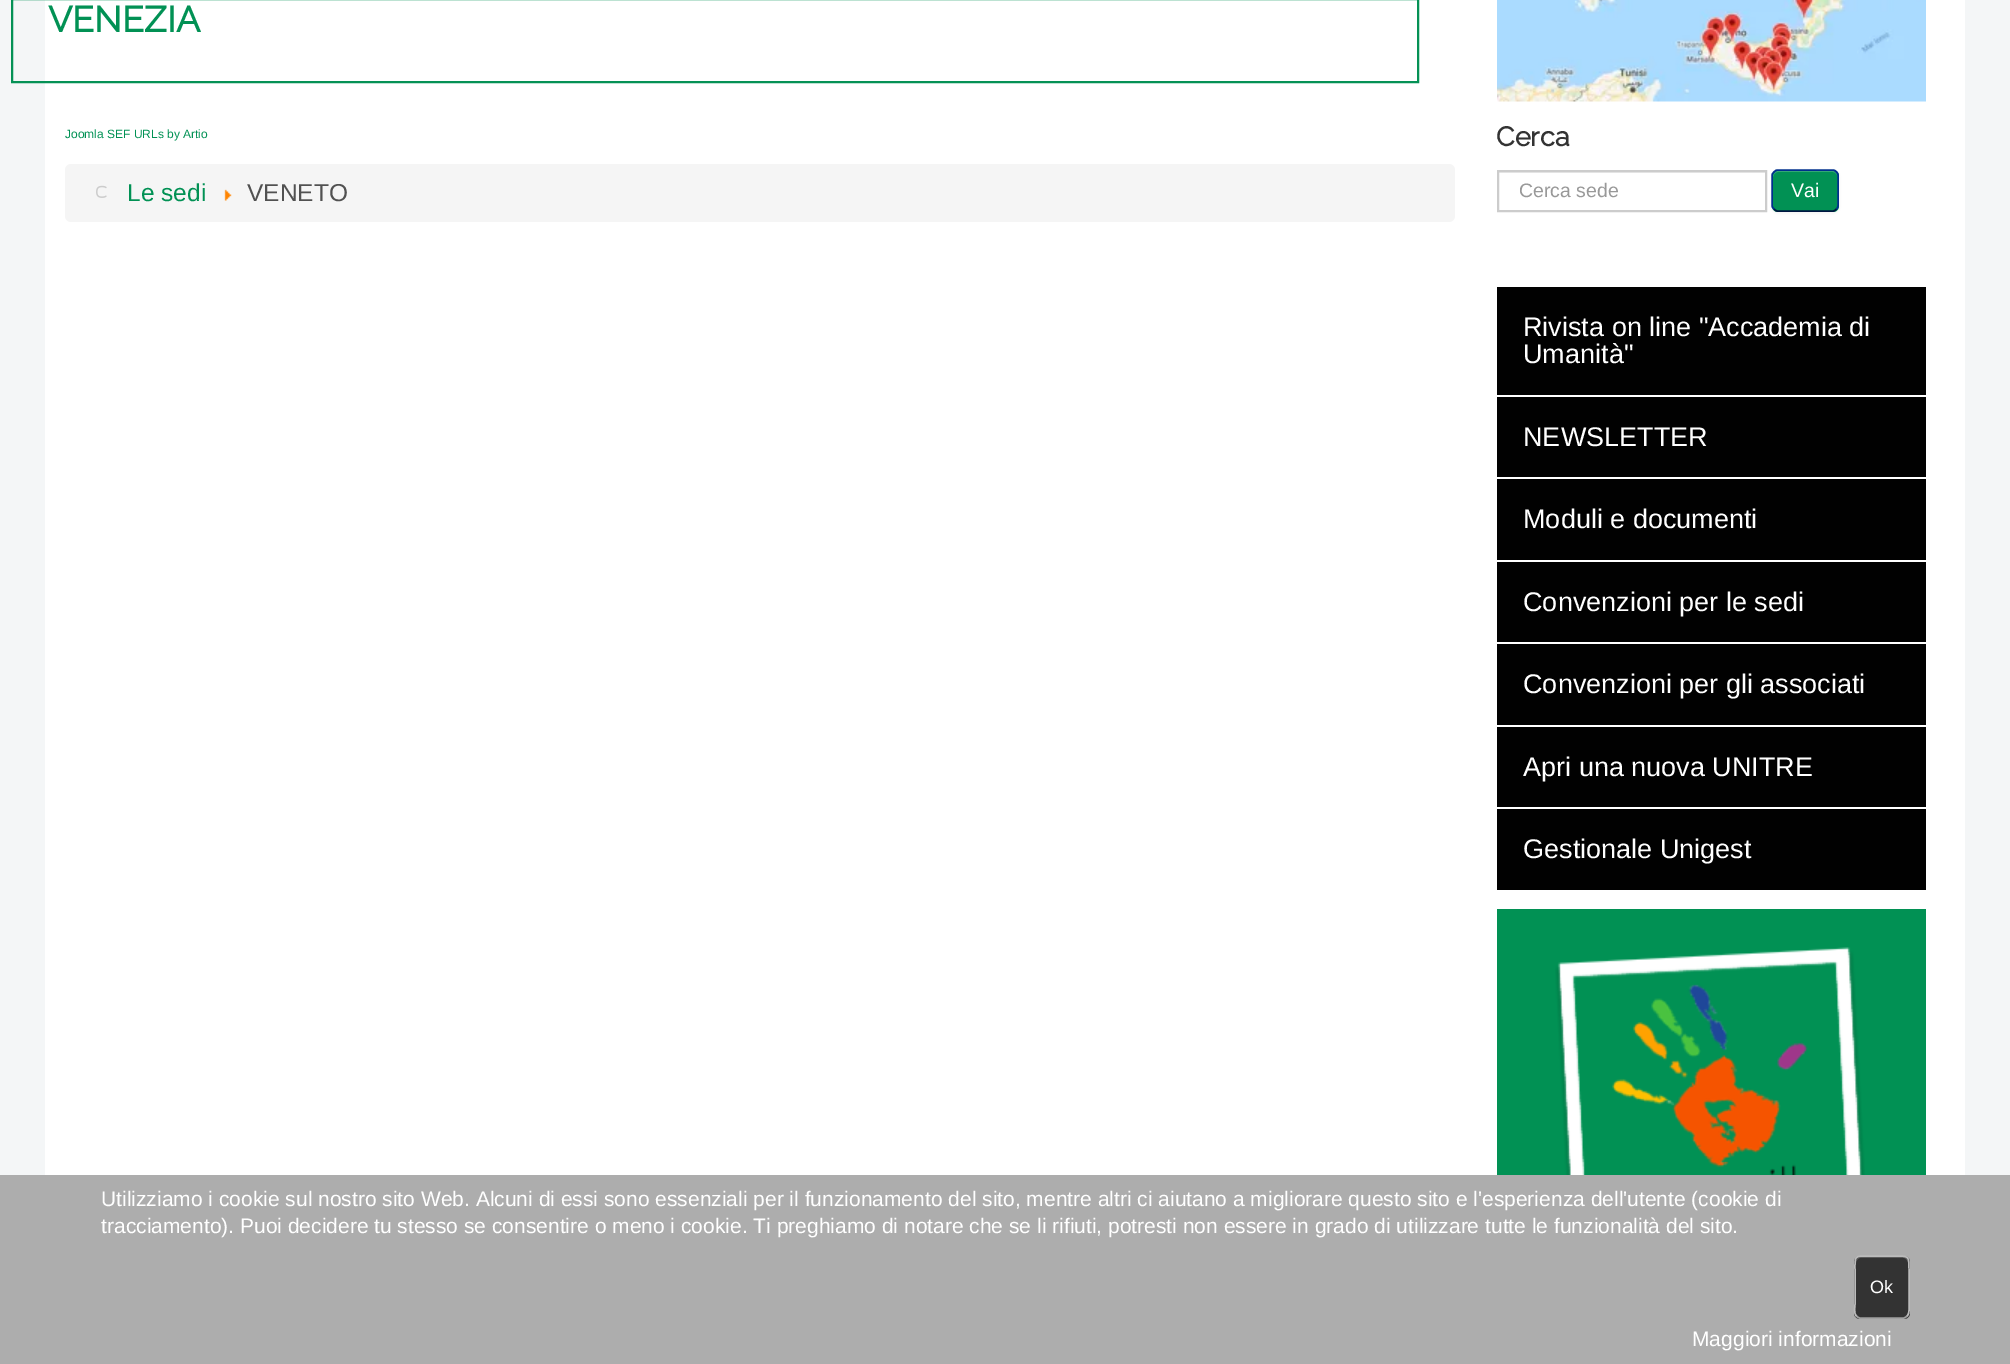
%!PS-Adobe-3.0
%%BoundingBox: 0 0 2010 1364
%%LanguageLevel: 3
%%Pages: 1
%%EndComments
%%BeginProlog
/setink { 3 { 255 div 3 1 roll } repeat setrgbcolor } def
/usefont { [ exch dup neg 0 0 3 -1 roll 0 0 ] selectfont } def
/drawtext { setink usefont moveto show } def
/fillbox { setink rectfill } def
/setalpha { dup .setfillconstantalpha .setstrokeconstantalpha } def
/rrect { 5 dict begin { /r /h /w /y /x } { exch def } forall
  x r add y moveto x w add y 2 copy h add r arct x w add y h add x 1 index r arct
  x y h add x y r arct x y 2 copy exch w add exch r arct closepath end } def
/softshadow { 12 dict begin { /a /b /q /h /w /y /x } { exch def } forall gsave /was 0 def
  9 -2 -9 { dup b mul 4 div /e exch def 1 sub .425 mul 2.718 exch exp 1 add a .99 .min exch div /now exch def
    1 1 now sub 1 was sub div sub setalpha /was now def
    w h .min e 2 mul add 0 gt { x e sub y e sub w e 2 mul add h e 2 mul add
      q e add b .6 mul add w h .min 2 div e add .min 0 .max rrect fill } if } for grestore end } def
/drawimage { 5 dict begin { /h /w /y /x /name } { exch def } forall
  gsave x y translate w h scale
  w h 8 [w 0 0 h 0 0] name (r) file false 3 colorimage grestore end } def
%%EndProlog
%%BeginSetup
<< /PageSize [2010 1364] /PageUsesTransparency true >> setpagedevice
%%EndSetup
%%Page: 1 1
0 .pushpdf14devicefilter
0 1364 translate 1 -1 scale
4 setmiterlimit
0 0 2010 1364 244 246 247 fillbox
45 0 1920 1175 255 255 255 fillbox
5 145 85 setink
2 setlinewidth
12 -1 1406 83 rectstroke
(VENEZIA) 48 32 /Raleway-Bold 36 1 145 84 drawtext
(Joomla SEF URLs by Artio) 65 138 /LiberationSans-Regular 12 1 145 84 drawtext
245 245 245 setink
65 164 1390 58 6 rrect fill
(assets/img1.rgb) 96 185 11 13 drawimage
(Le sedi) 127 201 /LiberationSans-Regular 24.5 1 145 84 drawtext
(assets/img2.rgb) 224 189 8 12 drawimage
(VENETO) 247 201 /LiberationSans-Regular 24.5 81 81 81 drawtext
(assets/img3.rgb) 1497 0 429 102 drawimage
(Cerca) 1496 146 /Raleway-Bold 27 51 51 51 drawtext
1499 172 267 1 236 236 236 fillbox
204 204 204 setink
1498 171 268 40 rectstroke
(Cerca sede) 1519 197 /LiberationSans-Regular 19.5 153 153 153 drawtext
0 0 0 setink
1772 171 67 42 6 1.5 0.05 softshadow
1 145 84 setink
1772 170 67 42 6 rrect fill
52 167 118 setink
1778 172 moveto 1833 172 lineto 1835 172 1838 175 1838 177 curveto 1838 169 1830 171 1824 171 curveto 1787 171 lineto 1781 171 1773 169 1773 177 curveto 1773 175 1775 172 1778 172 curveto closepath fill
0 22 65 setink
1.5 setlinewidth
1836.5 209 moveto 1835.5 210 1834.5 211 1833 211 curveto 1777.5 211 lineto 1776 211 1775 210 1774 209 curveto stroke
0 47 141 setink
1774 209 moveto 1773 208 1772 207 1772 205.5 curveto 1772 175.5 lineto 1772 174 1773 173 1774 172 curveto 1775 171 1776 170 1777.5 170 curveto 1833 170 lineto 1834.5 170 1835.5 171 1836.5 172 curveto 1837.5 173 1838 174 1838 175.5 curveto 1838 205.5 lineto 1838 207 1837.5 208 1836.5 209 curveto stroke
(Vai) 1791 197 /LiberationSans-Regular 19.5 255 255 255 drawtext
1497 287 429 603 1 1 1 fillbox
1497 395 429 2 255 255 255 fillbox
(Rivista on line "Accademia di) 1523 336 /LiberationSans-Regular 27 255 255 255 drawtext
(Umanità") 1523 363 /LiberationSans-Regular 27 255 255 255 drawtext
1497 477 429 2 255 255 255 fillbox
(NEWSLETTER) 1523 446 /LiberationSans-Regular 27 255 255 255 drawtext
1497 560 429 2 255 255 255 fillbox
(Moduli e documenti) 1523 528 /LiberationSans-Regular 27 255 255 255 drawtext
1497 642 429 2 255 255 255 fillbox
(Convenzioni per le sedi) 1523 611 /LiberationSans-Regular 27 255 255 255 drawtext
1497 725 429 2 255 255 255 fillbox
(Convenzioni per gli associati) 1523 693 /LiberationSans-Regular 27 255 255 255 drawtext
1497 807 429 2 255 255 255 fillbox
(Apri una nuova UNITRE) 1523 776 /LiberationSans-Regular 27 255 255 255 drawtext
(Gestionale Unigest) 1523 858 /LiberationSans-Regular 27 255 255 255 drawtext
1497 909 429 266 1 145 84 fillbox
(assets/img4.rgb) 1555 947 310 228 drawimage
0 1175 2010 189 173 173 173 fillbox
(Utilizziamo i cookie sul nostro sito Web. Alcuni di essi sono essenziali per il funzionamento del sito, mentre altri ci aiutano a migliorare questo sito e l'esperienza dell'utente \(cookie di) 101 1206 /LiberationSans-Regular 21 255 255 255 drawtext
(tracciamento\). Puoi decidere tu stesso se consentire o meno i cookie. Ti preghiamo di notare che se li rifiuti, potresti non essere in grado di utilizzare tutte le funzionalità del sito.) 101 1233 /LiberationSans-Regular 21 255 255 255 drawtext
51 51 51 setink
1854 1256 56 63 6 rrect fill
92 92 92 setink
1860 1258 moveto 1904 1258 lineto 1906 1258 1908 1261 1908 1263 curveto 1908 1256 1902 1257 1896 1257 curveto 1868 1257 lineto 1862 1257 1856 1256 1856 1263 curveto 1856 1261 1858 1258 1860 1258 curveto closepath fill
162 162 162 setink
1907 1316 moveto 1906 1317 1905 1318 1903.5 1318 curveto 1860 1318 lineto 1858.5 1318 1857.5 1317 1856.5 1316 curveto stroke
187 187 187 setink
1856.5 1316 moveto 1853.5 1313.5 1855 1306.5 1855 1304 curveto 1855 1270 lineto 1855 1256.5 1854 1256 1867 1256 curveto 1896 1256 lineto 1909.5 1256 1909 1256.5 1909 1270 curveto 1909 1304 lineto 1909 1306.5 1910 1313.5 1907 1316 curveto stroke
(Ok) 1870 1293 /LiberationSans-Regular 18 255 255 255 drawtext
(Maggiori informazioni) 1692 1346 /LiberationSans-Regular 21 255 255 255 drawtext
.poppdf14devicefilter showpage
%%EOF
